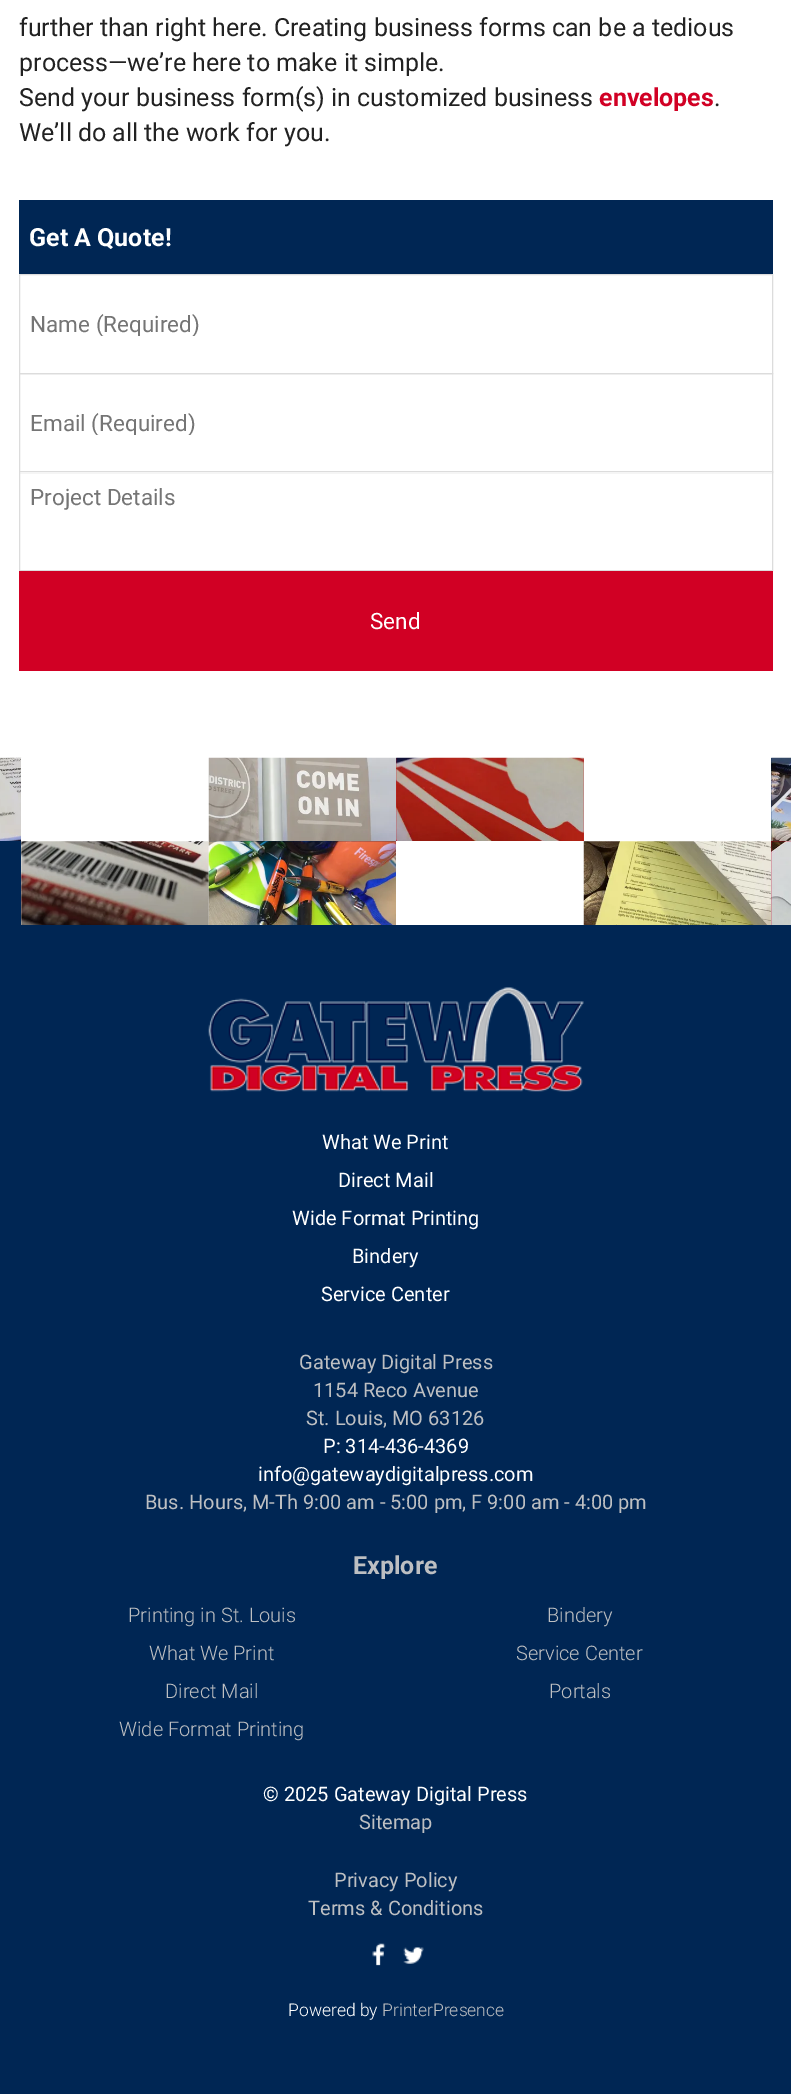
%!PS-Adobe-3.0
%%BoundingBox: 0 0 791 2094
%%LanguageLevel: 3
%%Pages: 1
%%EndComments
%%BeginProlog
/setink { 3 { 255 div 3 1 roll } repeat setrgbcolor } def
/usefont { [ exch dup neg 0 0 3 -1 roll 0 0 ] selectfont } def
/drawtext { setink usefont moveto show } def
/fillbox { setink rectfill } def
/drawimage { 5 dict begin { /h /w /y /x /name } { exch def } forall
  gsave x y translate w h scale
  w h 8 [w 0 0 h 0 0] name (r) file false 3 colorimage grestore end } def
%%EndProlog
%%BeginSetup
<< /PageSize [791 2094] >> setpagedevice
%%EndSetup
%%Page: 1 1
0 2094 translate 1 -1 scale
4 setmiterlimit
0 0 791 2094 255 255 255 fillbox
(further than right here. Creating business forms can be a tedious) 19 36 /Roboto-Regular 25 34 34 34 drawtext
(process—we’re here to make it simple.) 19 71 /Roboto-Regular 25 34 34 34 drawtext
(Send your business form\(s\) in customized business) 19 106 /Roboto-Regular 25 34 34 34 drawtext
(envelopes) 599 106 /Roboto-Bold 25 209 0 36 drawtext
(.) 714 106 /Roboto-Regular 25 34 34 34 drawtext
(We’ll do all the work for you.) 19 141 /Roboto-Regular 25 34 34 34 drawtext
19 200 754 74 0 38 84 fillbox
(Get A Quote!) 29 246 /Roboto-Bold 25 255 255 255 drawtext
220 220 220 setink
19.5 274.5 753 99 rectstroke
gsave
30 310 731 26 rectclip
(Name \(Required\)) 30 332 /Roboto-Regular 22.5 117 117 117 drawtext
grestore
19.5 373.5 753 99 rectstroke
gsave
30 409 731 26 rectclip
(Email \(Required\)) 30 431 /Roboto-Regular 22.5 117 117 117 drawtext
grestore
20 472 752 1 255 255 255 fillbox
220 220 220 setink
19.5 471.5 753 99 rectstroke
(Project Details) 30 505 /Roboto-Regular 22.5 117 117 117 drawtext
19 571 754 100 209 0 36 fillbox
(Send) 370 629 /Roboto-Regular 22.5 255 255 255 drawtext
(assets/img1.rgb) 0 757 22 84 drawimage
(assets/img2.rgb) 208 757 189 85 drawimage
(assets/img3.rgb) 396 757 188 84 drawimage
(assets/img4.rgb) 771 757 20 84 drawimage
21 758 1 83 255 255 255 fillbox
0 841 21 84 0 38 84 fillbox
208 841 1 1 255 255 255 fillbox
(assets/img5.rgb) 21 841 188 84 drawimage
(assets/img6.rgb) 208 841 188 84 drawimage
396 841 1 1 255 255 255 fillbox
(assets/img7.rgb) 583 841 188 84 drawimage
771 841 20 84 209 0 36 fillbox
(assets/img8.rgb) 771 841 20 84 drawimage
0 925 791 1169 0 38 84 fillbox
(assets/img9.rgb) 208 987 376 105 drawimage
(What We Print) 322 1149 /Roboto-Regular 20 255 255 255 drawtext
(Direct Mail) 338 1187 /Roboto-Regular 20 255 255 255 drawtext
(Wide Format Printing) 292 1225 /Roboto-Regular 20 255 255 255 drawtext
(Bindery) 352 1263 /Roboto-Regular 20 255 255 255 drawtext
(Service Center) 321 1301 /Roboto-Regular 20 255 255 255 drawtext
(Gateway Digital Press) 299 1369 /Roboto-Regular 20 189 191 194 drawtext
(1154 Reco Avenue) 313 1397 /Roboto-Regular 20 189 191 194 drawtext
(St. Louis, MO 63126) 306 1425 /Roboto-Regular 20 189 191 194 drawtext
(P: 314-436-4369) 323 1453 /Roboto-Regular 20 255 255 255 drawtext
(info@gatewaydigitalpress.com) 258 1481 /Roboto-Regular 20 255 255 255 drawtext
(Bus. Hours, M-Th 9:00 am - 5:00 pm, F 9:00 am - 4:00 pm) 145 1509 /Roboto-Regular 20 189 191 194 drawtext
(Explore) 353 1574 /Roboto-Bold 25 189 191 194 drawtext
(Printing in St. Louis) 128 1622 /Roboto-Light 20 189 191 194 drawtext
(Bindery) 547 1622 /Roboto-Light 20 189 191 194 drawtext
(What We Print) 149 1660 /Roboto-Light 20 189 191 194 drawtext
(Service Center) 516 1660 /Roboto-Light 20 189 191 194 drawtext
(Direct Mail) 165 1698 /Roboto-Light 20 189 191 194 drawtext
(Portals) 549 1698 /Roboto-Light 20 189 191 194 drawtext
(Wide Format Printing) 119 1736 /Roboto-Light 20 189 191 194 drawtext
(© 2025 Gateway Digital Press) 263 1801 /Roboto-Regular 20 255 255 255 drawtext
(Sitemap) 359 1829 /Roboto-Regular 20 189 191 194 drawtext
(Privacy Policy) 334 1887 /Roboto-Regular 20 189 191 194 drawtext
(Terms & Conditions) 308 1915 /Roboto-Regular 20 189 191 194 drawtext
(assets/img10.rgb) 372 1943 14 23 drawimage
(assets/img11.rgb) 403 1947 21 17 drawimage
(Powered by) 288 2016 /Roboto-Light 17.5 255 255 255 drawtext
(PrinterPresence) 382 2016 /Roboto-Light 17.5 189 191 194 drawtext
showpage
%%EOF
